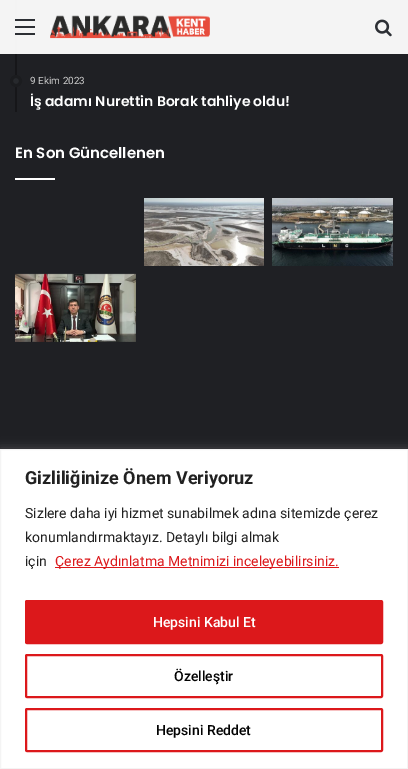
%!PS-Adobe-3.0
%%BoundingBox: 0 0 408 769
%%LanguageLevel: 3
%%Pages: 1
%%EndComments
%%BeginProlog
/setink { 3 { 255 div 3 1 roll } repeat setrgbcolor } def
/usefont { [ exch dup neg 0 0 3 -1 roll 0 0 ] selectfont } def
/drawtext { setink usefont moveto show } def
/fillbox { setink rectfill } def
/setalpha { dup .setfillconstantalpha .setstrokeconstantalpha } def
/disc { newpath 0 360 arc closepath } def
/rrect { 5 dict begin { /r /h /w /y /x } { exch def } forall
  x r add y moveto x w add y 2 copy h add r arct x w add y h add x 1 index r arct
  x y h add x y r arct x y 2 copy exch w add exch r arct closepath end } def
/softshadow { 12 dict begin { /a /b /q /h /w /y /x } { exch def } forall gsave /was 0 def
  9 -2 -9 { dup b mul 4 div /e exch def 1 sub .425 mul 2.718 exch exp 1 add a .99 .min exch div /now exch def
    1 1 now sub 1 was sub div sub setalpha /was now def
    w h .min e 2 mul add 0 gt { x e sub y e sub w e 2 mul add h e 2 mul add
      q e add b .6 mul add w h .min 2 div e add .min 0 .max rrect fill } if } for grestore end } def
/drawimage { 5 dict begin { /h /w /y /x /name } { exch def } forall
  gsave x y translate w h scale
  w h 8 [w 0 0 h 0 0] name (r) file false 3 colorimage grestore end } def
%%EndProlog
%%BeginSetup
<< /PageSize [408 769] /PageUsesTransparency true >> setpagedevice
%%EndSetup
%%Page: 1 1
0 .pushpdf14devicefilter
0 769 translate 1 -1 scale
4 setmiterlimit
0 0 408 769 31 32 36 fillbox
15 0 2 112 22 22 25 fillbox
39 41 45 setink
16 29 4.5 disc gsave fill grestore
27 28 31 setink
3 setlinewidth
stroke
0.95 setalpha
0 0 408 54 255 255 255 fillbox
1 setalpha
15 26 20 2 44 47 52 fillbox
15 19 20 2 44 47 52 fillbox
15 33 20 2 44 47 52 fillbox
(assets/img1.rgb) 50 15 160 24 drawimage
(assets/img2.rgb) 375 19 17 18 drawimage
39 41 45 setink
16 81 4.5 disc gsave fill grestore
27 28 31 setink
stroke
(9 Ekim 2023) 30 84 /Roboto-Regular 10 204 204 204 drawtext
(İş adamı Nurettin Borak tahliye oldu!) 30 106 /Poppins-SemiBold 14 255 255 255 drawtext
(En Son Güncellenen) 15 158 /Poppins-SemiBold 15 255 255 255 drawtext
15 178 40 2 255 255 255 fillbox
(assets/img3.rgb) 144 198 120 68 drawimage
(assets/img4.rgb) 272 198 121 68 drawimage
(assets/img5.rgb) 15 273 121 69 drawimage
172 171 171 setink
0 448 408 320 0 5 0.3 softshadow
255 255 255 setink
0.5 449.5 moveto 407.5 449.5 lineto 407.5 768.5 lineto 0.5 768.5 lineto closepath gsave fill grestore
244 244 244 setink
1 setlinewidth
stroke
(Gizliliğinize Önem Veriyoruz) 25 484 /Roboto-Bold 18 33 33 33 drawtext
(Sizlere daha iyi hizmet sunabilmek adına sitemizde çerez) 25 518 /Roboto-Regular 14 33 33 33 drawtext
(konumlandırmaktayız. Detaylı bilgi almak) 25 542 /Roboto-Regular 14 33 33 33 drawtext
(için) 25 566 /Roboto-Regular 14 33 33 33 drawtext
55 567 284 1 220 24 27 fillbox
(Çerez Aydınlatma Metnimizi inceleyebilirsiniz.) 55 566 /Roboto-Regular 14 220 24 27 drawtext
26 601 356 42 1 rrect gsave fill grestore
2 setlinewidth
stroke
(Hepsini Kabul Et) 153 627 /Roboto-Medium 14 255 255 255 drawtext
220 24 27 setink
26 655 356 42 1 rrect stroke
(Özelleştir) 174 681 /Roboto-Medium 14 2 2 2 drawtext
220 24 27 setink
26 709 356 42 1 rrect stroke
(Hepsini Reddet) 156 735 /Roboto-Medium 14 2 2 2 drawtext
.poppdf14devicefilter showpage
%%EOF
